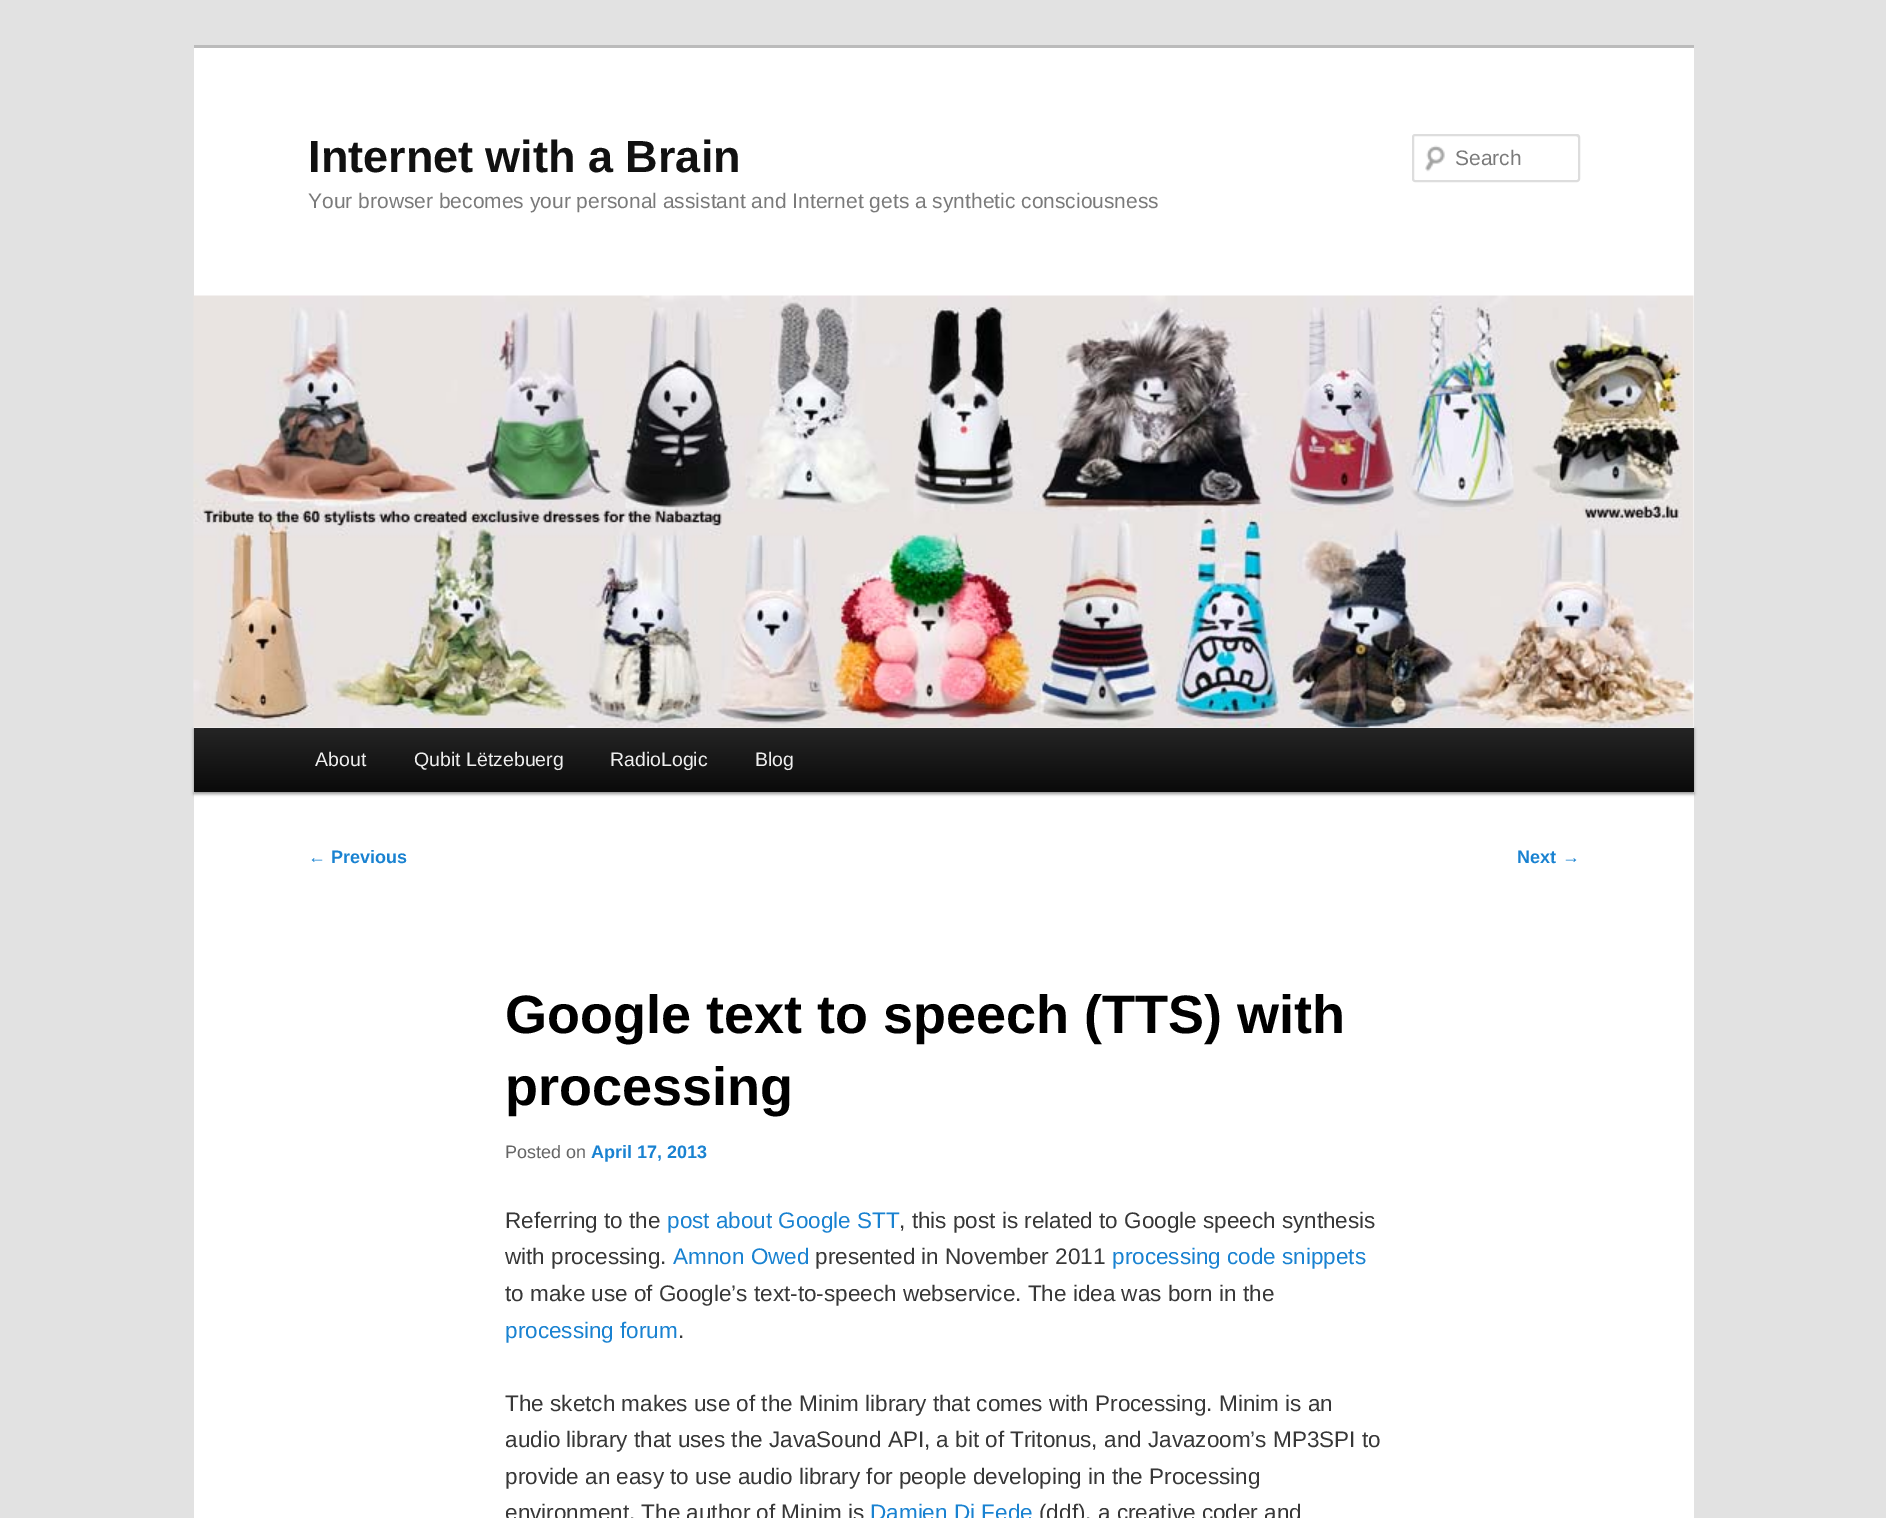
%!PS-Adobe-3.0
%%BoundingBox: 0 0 1886 1518
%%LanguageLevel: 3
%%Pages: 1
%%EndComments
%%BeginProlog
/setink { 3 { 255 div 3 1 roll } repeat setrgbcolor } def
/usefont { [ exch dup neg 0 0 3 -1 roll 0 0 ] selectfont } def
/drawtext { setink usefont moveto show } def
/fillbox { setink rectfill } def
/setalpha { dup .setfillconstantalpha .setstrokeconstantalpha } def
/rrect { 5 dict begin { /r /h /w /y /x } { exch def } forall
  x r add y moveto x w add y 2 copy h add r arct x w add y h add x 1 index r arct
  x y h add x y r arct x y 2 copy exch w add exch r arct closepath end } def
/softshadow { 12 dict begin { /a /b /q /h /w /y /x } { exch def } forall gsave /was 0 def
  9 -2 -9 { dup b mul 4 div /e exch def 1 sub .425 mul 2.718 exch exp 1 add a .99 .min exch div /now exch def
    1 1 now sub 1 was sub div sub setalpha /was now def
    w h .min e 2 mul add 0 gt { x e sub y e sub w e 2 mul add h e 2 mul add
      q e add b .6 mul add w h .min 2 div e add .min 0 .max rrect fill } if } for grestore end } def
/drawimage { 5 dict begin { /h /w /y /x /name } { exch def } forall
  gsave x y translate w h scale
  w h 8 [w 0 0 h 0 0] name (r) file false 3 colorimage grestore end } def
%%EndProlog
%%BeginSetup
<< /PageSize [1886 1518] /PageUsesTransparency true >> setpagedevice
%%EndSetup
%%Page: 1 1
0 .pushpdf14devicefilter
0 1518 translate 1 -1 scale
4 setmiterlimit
0 0 1886 1518 226 226 226 fillbox
194 48 1500 1470 255 255 255 fillbox
194 45 1500 3 187 187 187 fillbox
(Internet with a Brain) 308 172 /LiberationSans-Bold 45 17 17 17 drawtext
(Your browser becomes your personal assistant and Internet gets a synthetic consciousness) 308 208 /LiberationSans-Regular 21 122 122 122 drawtext
(assets/img1.rgb) 1425 145 20 27 drawimage
230 230 230 setink
1414 136 moveto 1576 136 lineto 1577 136 1578 137 1578 138 curveto 1578 136 lineto 1578 136 1577 135 1576 135 curveto 1414 135 lineto 1414 135 1413 136 1413 136 curveto 1413 138 lineto closepath fill
221 221 221 setink
2 setlinewidth
1413 135 166 46 2 rrect stroke
(Search) 1455 165 /LiberationSans-Regular 21 122 122 122 drawtext
0 0 0 setink
194 729 1500 65 0 1.5 0.4 softshadow
(assets/img2.rgb) 193 295 1501 433 drawimage
gsave 194 728 moveto 1694 728 lineto 1694 792 lineto 194 792 lineto closepath clip newpath
<< /ShadingType 2 /ColorSpace /DeviceRGB /Coords [944 727 944 792] /Extend [true true] /Function << /FunctionType 2 /Domain [0 1] /C0 [0.145 0.145 0.145] /C1 [0.039 0.039 0.039] /N 1 >> >> shfill grestore
(About) 315 766 /LiberationSans-Regular 19.5 238 238 238 drawtext
(Qubit Lëtzebuerg) 414 766 /LiberationSans-Regular 19.5 238 238 238 drawtext
(RadioLogic) 610 766 /LiberationSans-Regular 19.5 238 238 238 drawtext
(Blog) 755 766 /LiberationSans-Regular 19.5 238 238 238 drawtext
(←) 308 863 /LiberationSans-Regular 18 25 130 209 drawtext
(Previous) 331 863 /LiberationSans-Bold 18 25 130 209 drawtext
(Next) 1517 863 /LiberationSans-Bold 18 25 130 209 drawtext
(→) 1562 863 /LiberationSans-Regular 18 25 130 209 drawtext
(Google text to speech \(TTS\) with) 505 1033 /LiberationSans-Bold 54 0 0 0 drawtext
(processing) 505 1105 /LiberationSans-Bold 54 0 0 0 drawtext
(Posted on) 505 1158 /LiberationSans-Regular 18 102 102 102 drawtext
(April 17, 2013) 591 1158 /LiberationSans-Bold 18 25 130 209 drawtext
(Referring to the) 505 1228 /LiberationSans-Regular 22.5 55 55 55 drawtext
(post about Google STT) 667 1228 /LiberationSans-Regular 22.5 25 130 209 drawtext
(, this post is related to Google speech synthesis) 899 1228 /LiberationSans-Regular 22.5 55 55 55 drawtext
(with processing.) 505 1264 /LiberationSans-Regular 22.5 55 55 55 drawtext
(Amnon Owed) 673 1264 /LiberationSans-Regular 22.5 25 130 209 drawtext
(presented in November 2011) 815 1264 /LiberationSans-Regular 22.5 55 55 55 drawtext
(processing code snippets) 1112 1264 /LiberationSans-Regular 22.5 25 130 209 drawtext
(to make use of Google’s text-to-speech webservice. The idea was born in the) 505 1301 /LiberationSans-Regular 22.5 55 55 55 drawtext
(processing forum) 505 1338 /LiberationSans-Regular 22.5 25 130 209 drawtext
(.) 678 1338 /LiberationSans-Regular 22.5 55 55 55 drawtext
(The sketch makes use of the Minim library that comes with Processing. Minim is an) 505 1411 /LiberationSans-Regular 22.5 55 55 55 drawtext
(audio library that uses the JavaSound API, a bit of Tritonus, and Javazoom’s MP3SPI to) 505 1447 /LiberationSans-Regular 22.5 55 55 55 drawtext
(provide an easy to use audio library for people developing in the Processing) 505 1484 /LiberationSans-Regular 22.5 55 55 55 drawtext
(environment. The author of Minim is) 505 1520 /LiberationSans-Regular 22.5 55 55 55 drawtext
(Damien Di Fede) 870 1520 /LiberationSans-Regular 22.5 25 130 209 drawtext
(\(ddf\), a creative coder and) 1039 1520 /LiberationSans-Regular 22.5 55 55 55 drawtext
.poppdf14devicefilter showpage
%%EOF
